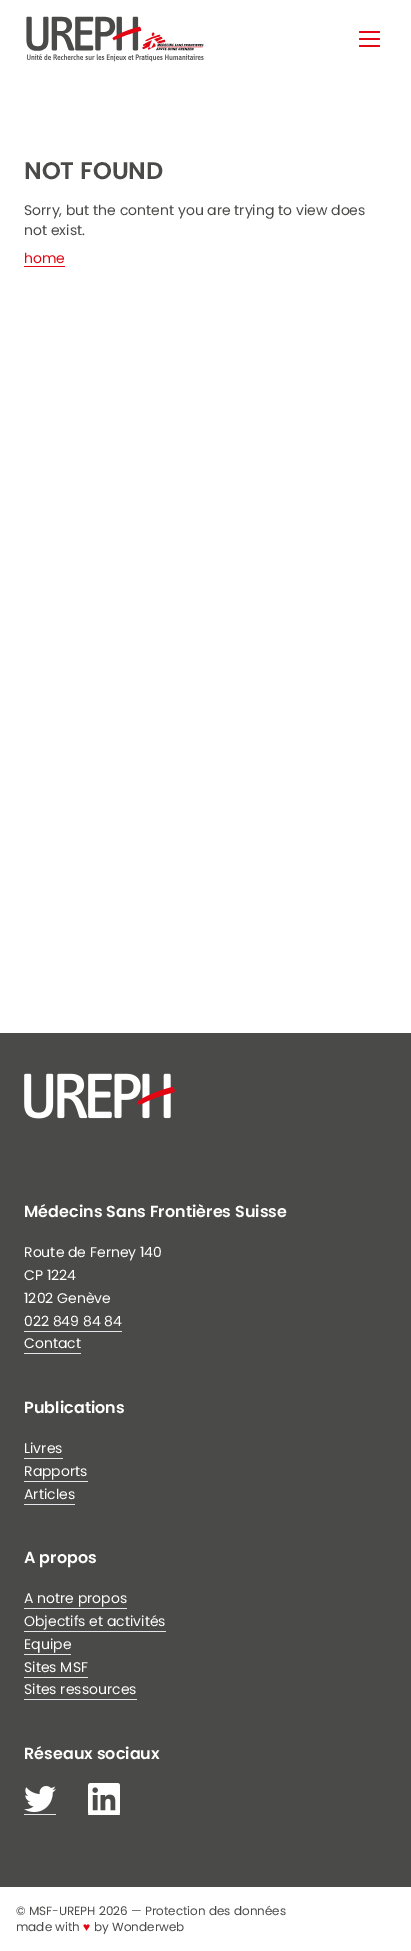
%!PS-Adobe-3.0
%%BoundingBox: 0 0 411 1951
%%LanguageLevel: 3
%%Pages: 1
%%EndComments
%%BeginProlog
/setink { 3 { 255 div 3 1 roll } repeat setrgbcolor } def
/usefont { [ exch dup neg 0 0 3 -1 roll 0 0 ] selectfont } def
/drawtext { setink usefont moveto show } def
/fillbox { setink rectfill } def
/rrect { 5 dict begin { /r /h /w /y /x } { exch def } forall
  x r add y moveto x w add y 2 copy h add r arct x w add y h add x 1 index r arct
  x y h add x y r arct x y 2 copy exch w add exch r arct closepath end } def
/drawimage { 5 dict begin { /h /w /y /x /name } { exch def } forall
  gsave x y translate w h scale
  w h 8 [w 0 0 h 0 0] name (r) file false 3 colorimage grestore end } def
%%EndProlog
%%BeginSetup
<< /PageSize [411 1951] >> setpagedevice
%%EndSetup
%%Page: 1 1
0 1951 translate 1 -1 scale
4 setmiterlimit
0 0 411 1951 255 255 255 fillbox
(assets/img1.rgb) 26 16 178 46 drawimage
227 6 19 setink
359 31 21 2 1 rrect fill
359 38 21 2 1 rrect fill
359 45 21 2 1 rrect fill
(NOT FOUND) 24 179 /Poppins-SemiBold 24 74 74 73 drawtext
(Sorry, but the content you are trying to view does) 24 215 /Poppins-Regular 14 74 74 73 drawtext
(not exist.) 24 235 /Poppins-Regular 14 74 74 73 drawtext
(home) 24 263 /Poppins-Regular 14 227 6 19 drawtext
24 266 41 1 227 6 19 fillbox
0 1033 411 854 74 74 73 fillbox
(assets/img2.rgb) 24 1073 151 46 drawimage
(Médecins Sans Frontières Suisse) 24 1217 /Poppins-SemiBold 16 255 255 255 drawtext
(Route de Ferney 140) 24 1257 /Poppins-Regular 14 255 255 255 drawtext
(CP 1224) 24 1280 /Poppins-Regular 14 255 255 255 drawtext
(1202 Genève) 24 1303 /Poppins-Regular 14 255 255 255 drawtext
(022 849 84 84) 24 1326 /Poppins-Regular 14 255 255 255 drawtext
24 1331 98 1 229 231 235 fillbox
(Contact) 24 1348 /Poppins-Regular 14 255 255 255 drawtext
24 1353 57 1 229 231 235 fillbox
(Publications) 24 1413 /Poppins-SemiBold 16 255 255 255 drawtext
(Livres) 24 1453 /Poppins-Regular 14 255 255 255 drawtext
24 1458 39 1 229 231 235 fillbox
(Rapports) 24 1476 /Poppins-Regular 14 255 255 255 drawtext
24 1481 64 1 229 231 235 fillbox
(Articles) 24 1499 /Poppins-Regular 14 255 255 255 drawtext
24 1504 51 1 229 231 235 fillbox
(A propos) 24 1563 /Poppins-SemiBold 16 255 255 255 drawtext
(A notre propos) 24 1603 /Poppins-Regular 14 255 255 255 drawtext
24 1608 103 1 229 231 235 fillbox
(Objectifs et activités) 24 1626 /Poppins-Regular 14 255 255 255 drawtext
24 1631 142 1 229 231 235 fillbox
(Equipe) 24 1649 /Poppins-Regular 14 255 255 255 drawtext
24 1654 47 1 229 231 235 fillbox
(Sites MSF) 24 1672 /Poppins-Regular 14 255 255 255 drawtext
24 1677 64 1 229 231 235 fillbox
(Sites ressources) 24 1694 /Poppins-Regular 14 255 255 255 drawtext
24 1699 113 1 229 231 235 fillbox
(Réseaux sociaux) 24 1759 /Poppins-SemiBold 16 255 255 255 drawtext
24 1814 32 1 229 231 235 fillbox
(assets/img3.rgb) 24 1786 32 26 drawimage
88 1814 32 1 229 231 235 fillbox
(assets/img4.rgb) 88 1783 32 32 drawimage
(© MSF-UREPH 2026 — Protection des données) 16 1915 /Poppins-Regular 12 74 74 73 drawtext
(made with) 16 1931 /Poppins-Regular 12 74 74 73 drawtext
(♥) 83 1931 /LiberationSans-Regular 12 227 6 19 drawtext
(by Wonderweb) 94 1931 /Poppins-Regular 12 74 74 73 drawtext
showpage
%%EOF
